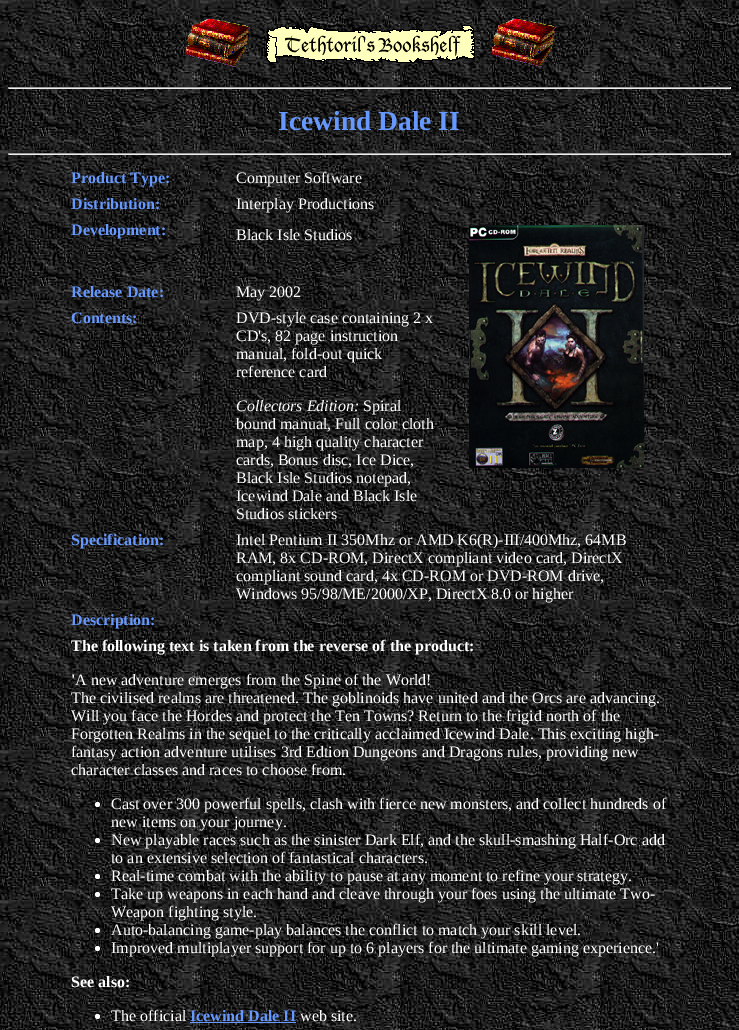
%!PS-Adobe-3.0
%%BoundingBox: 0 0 739 1030
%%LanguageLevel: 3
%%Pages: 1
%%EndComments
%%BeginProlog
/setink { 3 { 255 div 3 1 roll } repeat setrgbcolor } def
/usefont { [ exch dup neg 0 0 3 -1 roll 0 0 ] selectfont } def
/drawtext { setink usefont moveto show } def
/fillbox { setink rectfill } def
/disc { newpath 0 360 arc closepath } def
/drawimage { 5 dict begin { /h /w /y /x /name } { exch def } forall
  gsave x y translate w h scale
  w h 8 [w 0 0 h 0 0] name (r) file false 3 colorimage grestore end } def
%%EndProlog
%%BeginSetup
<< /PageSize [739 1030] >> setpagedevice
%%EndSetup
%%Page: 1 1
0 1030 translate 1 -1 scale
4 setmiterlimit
0 0 739 1030 255 255 255 fillbox
(assets/img1.rgb) 0 0 739 1030 drawimage
(assets/img2.rgb) 185 18 65 49 drawimage
(assets/img3.rgb) 266 25 209 38 drawimage
(assets/img4.rgb) 491 18 65 49 drawimage
8 87 723 1 159 159 159 fillbox
730 87 1 2 238 238 238 fillbox
8 88 723 1 238 238 238 fillbox
8 87 1 2 159 159 159 fillbox
(Icewind Dale II) 278 130 /LiberationSerif-Bold 27.5 102 153 255 drawtext
8 153 723 1 159 159 159 fillbox
730 153 1 2 238 238 238 fillbox
8 154 723 1 238 238 238 fillbox
8 153 1 2 159 159 159 fillbox
(Product Type:) 71 183 /LiberationSerif-Bold 16 102 153 255 drawtext
(Computer Software) 236 183 /LiberationSerif-Regular 16 255 255 255 drawtext
(assets/img5.rgb) 469 225 175 243 drawimage
(Distribution:) 71 209 /LiberationSerif-Bold 16 102 153 255 drawtext
(Interplay Productions) 236 209 /LiberationSerif-Regular 16 255 255 255 drawtext
(Development:) 71 235 /LiberationSerif-Bold 16 102 153 255 drawtext
(Black Isle Studios) 236 240 /LiberationSerif-Regular 16 255 255 255 drawtext
(Release Date:) 71 297 /LiberationSerif-Bold 16 102 153 255 drawtext
(May 2002) 236 297 /LiberationSerif-Regular 16 255 255 255 drawtext
(Contents:) 71 323 /LiberationSerif-Bold 16 102 153 255 drawtext
(DVD-style case containing 2 x) 236 323 /LiberationSerif-Regular 16 255 255 255 drawtext
(CD's, 82 page instruction) 236 341 /LiberationSerif-Regular 16 255 255 255 drawtext
(manual, fold-out quick) 236 359 /LiberationSerif-Regular 16 255 255 255 drawtext
(reference card) 236 377 /LiberationSerif-Regular 16 255 255 255 drawtext
(Collectors Edition:) 236 411 /LiberationSerif-Italic 16 255 255 255 drawtext
(Spiral) 363 411 /LiberationSerif-Regular 16 255 255 255 drawtext
(bound manual, Full color cloth) 236 429 /LiberationSerif-Regular 16 255 255 255 drawtext
(map, 4 high quality character) 236 447 /LiberationSerif-Regular 16 255 255 255 drawtext
(cards, Bonus disc, Ice Dice,) 236 465 /LiberationSerif-Regular 16 255 255 255 drawtext
(Black Isle Studios notepad,) 236 483 /LiberationSerif-Regular 16 255 255 255 drawtext
(Icewind Dale and Black Isle) 236 501 /LiberationSerif-Regular 16 255 255 255 drawtext
(Studios stickers) 236 519 /LiberationSerif-Regular 16 255 255 255 drawtext
(Specification:) 71 545 /LiberationSerif-Bold 16 102 153 255 drawtext
(Intel Pentium II 350Mhz or AMD K6\(R\)-III/400Mhz, 64MB) 236 545 /LiberationSerif-Regular 16 255 255 255 drawtext
(RAM, 8x CD-ROM, DirectX compliant video card, DirectX) 236 563 /LiberationSerif-Regular 16 255 255 255 drawtext
(compliant sound card, 4x CD-ROM or DVD-ROM drive,) 236 581 /LiberationSerif-Regular 16 255 255 255 drawtext
(Windows 95/98/ME/2000/XP, DirectX 8.0 or higher) 236 599 /LiberationSerif-Regular 16 255 255 255 drawtext
(Description:) 71 625 /LiberationSerif-Bold 16 102 153 255 drawtext
(The following text is taken from the reverse of the product:) 71 651 /LiberationSerif-Bold 16 255 255 255 drawtext
(') 71 685 /LiberationSerif-Bold 16 255 255 255 drawtext
(A new adventure emerges from the Spine of the World!) 75 685 /LiberationSerif-Regular 16 255 255 255 drawtext
(The civilised realms are threatened. The goblinoids have united and the Orcs are advancing.) 71 703 /LiberationSerif-Regular 16 255 255 255 drawtext
(Will you face the Hordes and protect the Ten Towns? Return to the frigid north of the) 71 721 /LiberationSerif-Regular 16 255 255 255 drawtext
(Forgotten Realms in the sequel to the critically acclaimed Icewind Dale. This exciting high-) 71 739 /LiberationSerif-Regular 16 255 255 255 drawtext
(fantasy action adventure utilises 3rd Edtion Dungeons and Dragons rules, providing new) 71 757 /LiberationSerif-Regular 16 255 255 255 drawtext
(character classes and races to choose from.) 71 775 /LiberationSerif-Regular 16 255 255 255 drawtext
97.5 804.5 2.5 disc fill
(Cast over 300 powerful spells, clash with fierce new monsters, and collect hundreds of) 111 809 /LiberationSerif-Regular 16 255 255 255 drawtext
(new items on your journey.) 111 827 /LiberationSerif-Regular 16 255 255 255 drawtext
97.5 840.5 2.5 disc fill
(New playable races such as the sinister Dark Elf, and the skull-smashing Half-Orc add) 111 845 /LiberationSerif-Regular 16 255 255 255 drawtext
(to an extensive selection of fantastical characters.) 111 863 /LiberationSerif-Regular 16 255 255 255 drawtext
97.5 876.5 2.5 disc fill
(Real-time combat with the ability to pause at any moment to refine your strategy.) 111 881 /LiberationSerif-Regular 16 255 255 255 drawtext
97.5 894.5 2.5 disc fill
(Take up weapons in each hand and cleave through your foes using the ultimate Two-) 111 899 /LiberationSerif-Regular 16 255 255 255 drawtext
(Weapon fighting style.) 111 917 /LiberationSerif-Regular 16 255 255 255 drawtext
97.5 930.5 2.5 disc fill
(Auto-balancing game-play balances the conflict to match your skill level.) 111 935 /LiberationSerif-Regular 16 255 255 255 drawtext
97.5 948.5 2.5 disc fill
(Improved multiplayer support for up to 6 players for the ultimate gaming experience.') 111 953 /LiberationSerif-Regular 16 255 255 255 drawtext
(See also:) 71 987 /LiberationSerif-Bold 16 255 255 255 drawtext
97.5 1016.5 2.5 disc fill
(The official) 111 1021 /LiberationSerif-Regular 16 255 255 255 drawtext
(Icewind Dale II) 190 1021 /LiberationSerif-Bold 16 102 153 255 drawtext
190 1022 106 1 102 153 255 fillbox
(web site.) 300 1021 /LiberationSerif-Regular 16 255 255 255 drawtext
showpage
%%EOF
